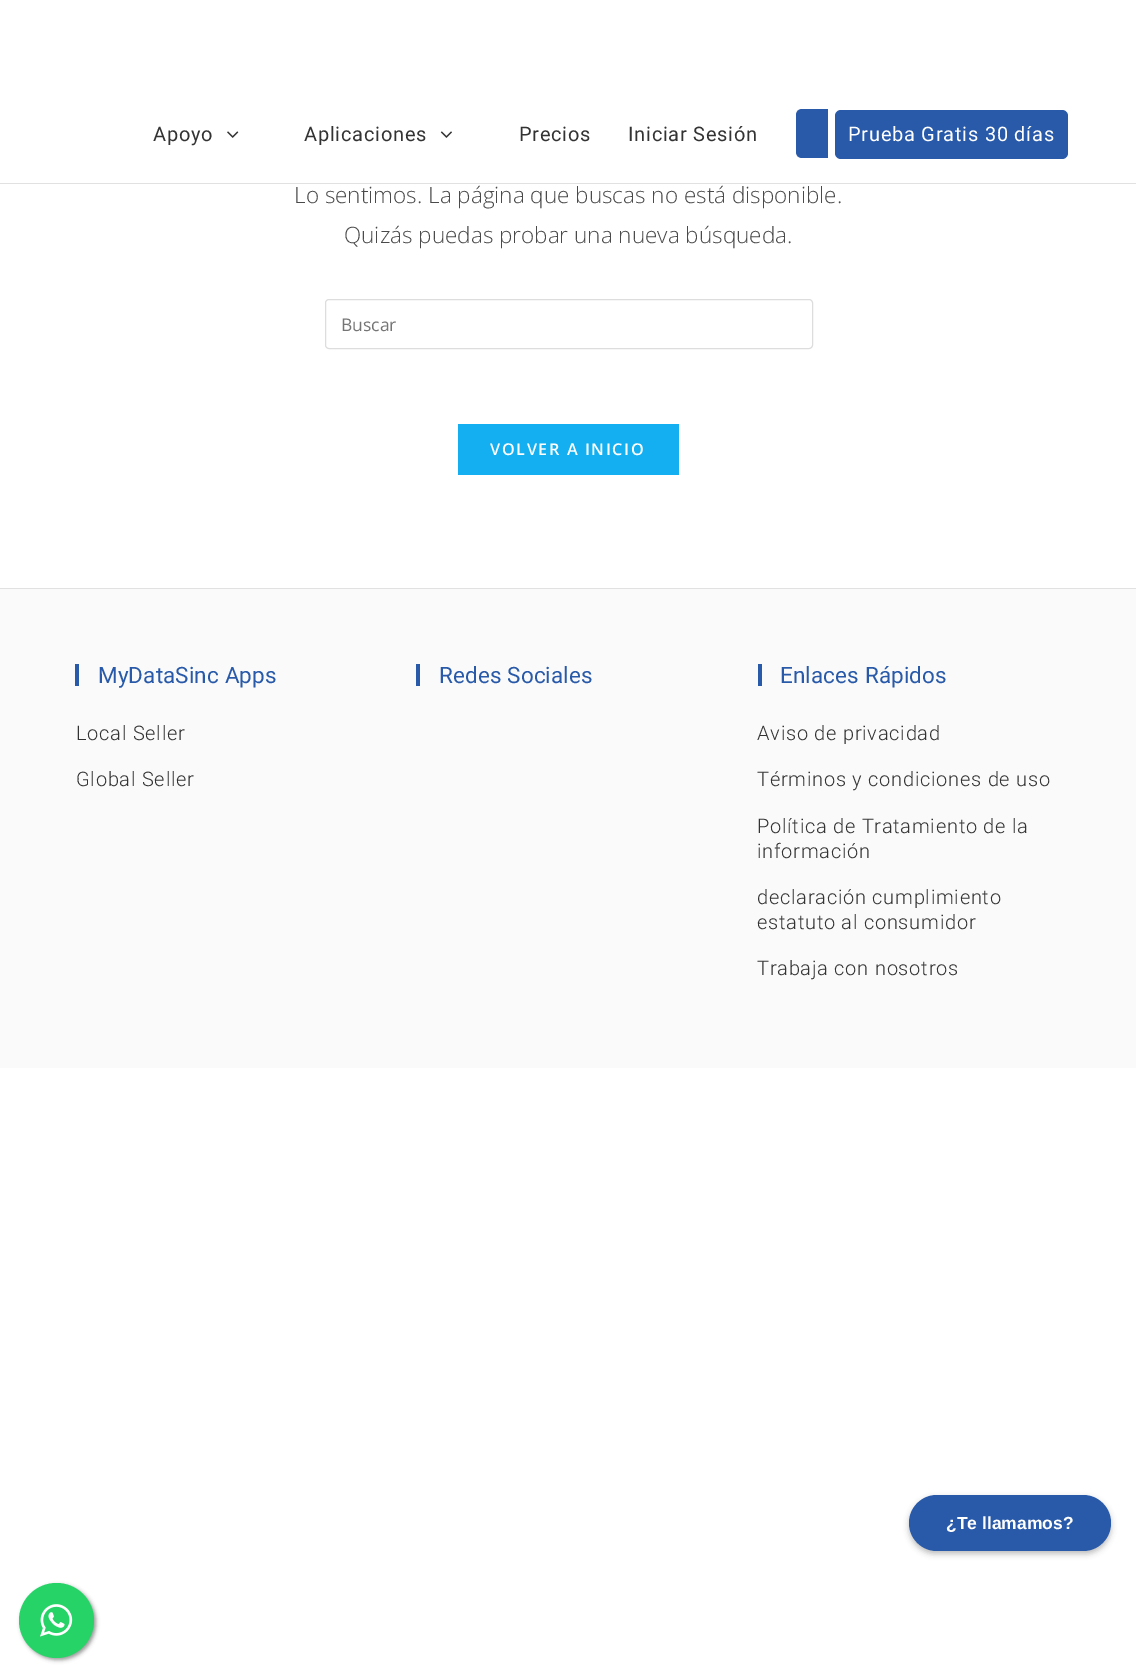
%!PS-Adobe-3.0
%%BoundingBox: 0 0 1136 1676
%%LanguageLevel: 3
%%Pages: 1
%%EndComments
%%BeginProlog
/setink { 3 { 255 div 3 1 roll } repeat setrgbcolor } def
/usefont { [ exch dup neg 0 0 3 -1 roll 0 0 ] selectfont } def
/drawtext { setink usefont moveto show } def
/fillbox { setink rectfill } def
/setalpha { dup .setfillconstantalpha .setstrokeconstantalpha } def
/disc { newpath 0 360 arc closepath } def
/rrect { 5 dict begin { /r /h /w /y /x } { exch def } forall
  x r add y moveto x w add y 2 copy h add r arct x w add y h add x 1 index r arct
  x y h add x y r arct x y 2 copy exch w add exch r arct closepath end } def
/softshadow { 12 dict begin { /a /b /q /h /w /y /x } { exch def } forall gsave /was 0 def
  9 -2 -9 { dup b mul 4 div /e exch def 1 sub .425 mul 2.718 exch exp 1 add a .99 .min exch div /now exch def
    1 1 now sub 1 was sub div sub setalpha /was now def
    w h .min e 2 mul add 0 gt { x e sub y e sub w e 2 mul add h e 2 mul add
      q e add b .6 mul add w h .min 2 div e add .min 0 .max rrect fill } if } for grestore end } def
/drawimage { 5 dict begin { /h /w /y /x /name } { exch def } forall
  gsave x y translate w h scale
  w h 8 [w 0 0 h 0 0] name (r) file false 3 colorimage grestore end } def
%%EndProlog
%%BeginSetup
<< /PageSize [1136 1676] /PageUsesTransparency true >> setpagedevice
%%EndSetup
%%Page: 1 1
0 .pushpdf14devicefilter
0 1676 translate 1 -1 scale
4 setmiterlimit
0 0 1136 1676 255 255 255 fillbox
0 183 1136 1 225 225 225 fillbox
/Roboto-Regular 20 usefont
51 51 51 setink
153 141 moveto 0.75 0 (Apoyo) ashow
(assets/img1.rgb) 227 131 12 7 drawimage
304 141 moveto 0.75 0 (Aplicaciones) ashow
(assets/img2.rgb) 440 131 12 7 drawimage
519 141 moveto 0.75 0 (Precios) ashow
628 141 moveto 0.75 0 (Iniciar Sesión) ashow
41 90 169 setink
835 110 233 49 6 rrect fill
255 255 255 setink
848 141 moveto 0.75 0 (Prueba Gratis 30 días) ashow
41 90 169 setink
802 109 moveto 828 109 lineto 828 158 lineto 802 158 lineto 798.5 158 796 155.5 796 152 curveto 796 115 lineto 796 111.5 798.5 109 802 109 curveto closepath fill
(Lo sentimos. La página que buscas no está disponible.) 294 203 /OpenSans-Light 22.5 74 74 74 drawtext
(Quizás puedas probar una nueva búsqueda.) 344 243 /OpenSans-Light 22.5 74 74 74 drawtext
221 221 221 setink
325.5 299.5 487 49 3.5 rrect stroke
(Buscar) 341 331 /OpenSans-Regular 17.5 117 117 117 drawtext
458 424 221 51 19 175 240 fillbox
/OpenSans-SemiBold 16.25 usefont
255 255 255 setink
490 455 moveto 1.6 0 (VOLVER A INICIO) ashow
0 589 1136 479 250 250 250 fillbox
0 588 1136 1 225 225 225 fillbox
75 664 4 22 41 90 169 fillbox
/Roboto-Regular 22.5 usefont
98 683 moveto 0.1 0 (MyDataSinc Apps) ashow
/Roboto-Light 20 usefont
51 51 51 setink
76 740 moveto 0.75 0 (Local Seller) ashow
76 786 moveto 0.75 0 (Global Seller) ashow
416 664 4 22 41 90 169 fillbox
/Roboto-Regular 22.5 usefont
439 683 moveto 0.1 0 (Redes Sociales) ashow
758 664 4 22 41 90 169 fillbox
780 683 moveto 0.1 0 (Enlaces Rápidos) ashow
/Roboto-Light 20 usefont
51 51 51 setink
757 740 moveto 0.75 0 (Aviso de privacidad) ashow
757 786 moveto 0.75 0 (Términos y condiciones de uso) ashow
757 833 moveto 0.75 0 (Política de Tratamiento de la) ashow
757 858 moveto 0.75 0 (información) ashow
757 904 moveto 0.75 0 (declaración cumplimiento) ashow
757 929 moveto 0.75 0 (estatuto al consumidor) ashow
757 975 moveto 0.75 0 (Trabaja con nosotros) ashow
0 0 0 setink
909 1498 202 56 28 3 0.25 softshadow
41 90 169 setink
909 1495 202 56 28 rrect fill
(¿Te llamamos?) 946 1529 /LiberationSans-Bold 17.5 255 255 255 drawtext
153 153 153 setink
21 1585 75 75 37.5 2 1 softshadow
37 211 102 setink
56.5 1620.5 37.5 disc fill
(assets/img3.rgb) 40 1604 33 33 drawimage
.poppdf14devicefilter showpage
%%EOF
